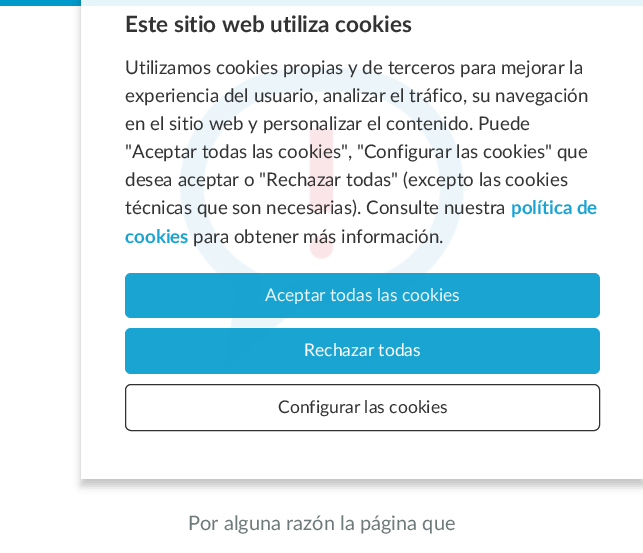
%!PS-Adobe-3.0
%%BoundingBox: 0 0 643 553
%%LanguageLevel: 3
%%Pages: 1
%%EndComments
%%BeginProlog
/setink { 3 { 255 div 3 1 roll } repeat setrgbcolor } def
/usefont { [ exch dup neg 0 0 3 -1 roll 0 0 ] selectfont } def
/drawtext { setink usefont moveto show } def
/fillbox { setink rectfill } def
/setalpha { dup .setfillconstantalpha .setstrokeconstantalpha } def
/rrect { 5 dict begin { /r /h /w /y /x } { exch def } forall
  x r add y moveto x w add y 2 copy h add r arct x w add y h add x 1 index r arct
  x y h add x y r arct x y 2 copy exch w add exch r arct closepath end } def
/softshadow { 12 dict begin { /a /b /q /h /w /y /x } { exch def } forall gsave /was 0 def
  9 -2 -9 { dup b mul 4 div /e exch def 1 sub .425 mul 2.718 exch exp 1 add a .99 .min exch div /now exch def
    1 1 now sub 1 was sub div sub setalpha /was now def
    w h .min e 2 mul add 0 gt { x e sub y e sub w e 2 mul add h e 2 mul add
      q e add b .6 mul add w h .min 2 div e add .min 0 .max rrect fill } if } for grestore end } def
/drawimage { 5 dict begin { /h /w /y /x /name } { exch def } forall
  gsave x y translate w h scale
  w h 8 [w 0 0 h 0 0] name (r) file false 3 colorimage grestore end } def
%%EndProlog
%%BeginSetup
<< /PageSize [643 553] /PageUsesTransparency true >> setpagedevice
%%EndSetup
%%Page: 1 1
0 .pushpdf14devicefilter
0 553 translate 1 -1 scale
4 setmiterlimit
0 0 643 553 255 255 255 fillbox
0 0 643 6 0 153 203 fillbox
(assets/img1.rgb) 179 68 286 302 drawimage
gsave
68 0 moveto 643 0 lineto 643 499 lineto 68 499 lineto closepath 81 -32 moveto 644 -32 lineto 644 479 lineto 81 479 lineto closepath eoclip newpath
0 0 0 setink
81 -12 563 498 0 4 0.23 softshadow
grestore
0.9 setalpha
81 0 562 479 255 255 255 fillbox
1 setalpha
(Este sitio web utiliza cookies) 125 32 /Lato-Bold 22.5 51 51 51 drawtext
(Utilizamos cookies propias y de terceros para mejorar la) 125 74 /Lato-Regular 18.75 51 51 51 drawtext
(experiencia del usuario, analizar el tráfico, su navegación) 125 102 /Lato-Regular 18.75 51 51 51 drawtext
(en el sitio web y personalizar el contenido. Puede) 125 130 /Lato-Regular 18.75 51 51 51 drawtext
("Aceptar todas las cookies", "Configurar las cookies" que) 125 158 /Lato-Regular 18.75 51 51 51 drawtext
(desea aceptar o "Rechazar todas" \(excepto las cookies) 125 186 /Lato-Regular 18.75 51 51 51 drawtext
(técnicas que son necesarias\). Consulte nuestra) 125 214 /Lato-Regular 18.75 51 51 51 drawtext
(política de) 511 214 /Lato-Bold 18.75 26 164 209 drawtext
(cookies) 125 243 /Lato-Bold 18.75 26 164 209 drawtext
(para obtener más información.) 193 243 /Lato-Regular 18.75 51 51 51 drawtext
0.9 setalpha
1 154 204 setink
125 273 475 45 6 rrect fill
1 setalpha
(Aceptar todas las cookies) 265 301 /Lato-Regular 17.5 232 246 250 drawtext
0.9 setalpha
1 154 204 setink
125 328 475 46 6 rrect fill
1 setalpha
(Rechazar todas) 304 356 /Lato-Regular 17.5 255 255 255 drawtext
0.9 setalpha
28 28 28 setink
125.5 384.5 474 46 5.5 rrect stroke
1 setalpha
(Configurar las cookies) 278 413 /Lato-Regular 17.5 51 51 51 drawtext
(Por alguna razón la página que) 188 530 /Lato-Regular 20 110 121 122 drawtext
.poppdf14devicefilter showpage
%%EOF
